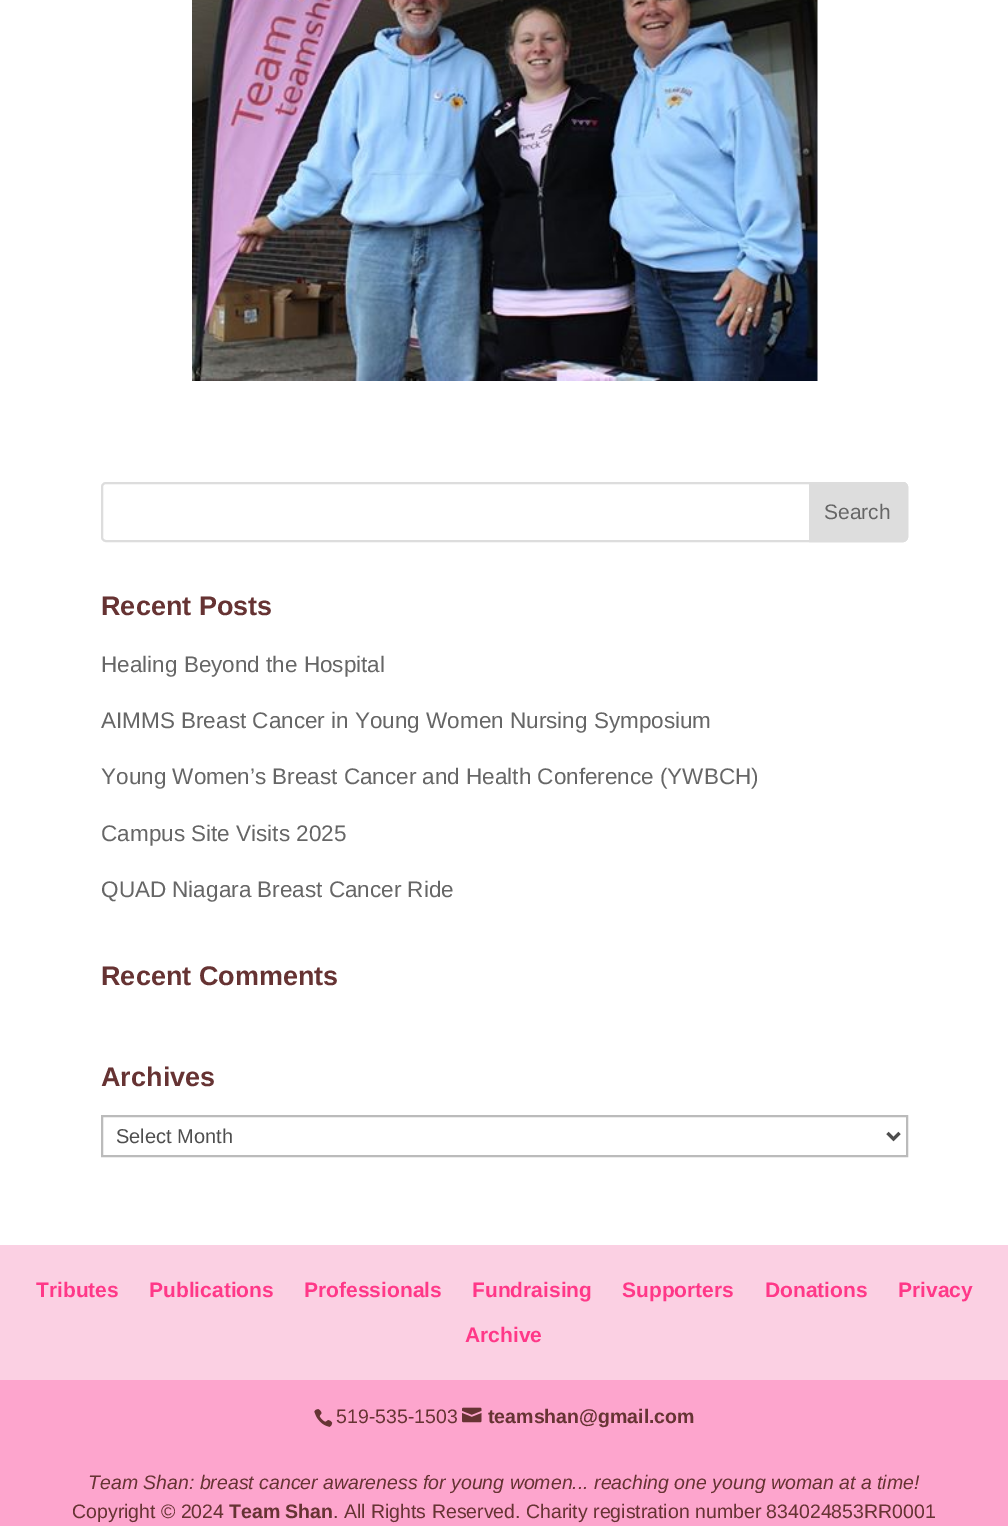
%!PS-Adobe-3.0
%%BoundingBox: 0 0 1008 1526
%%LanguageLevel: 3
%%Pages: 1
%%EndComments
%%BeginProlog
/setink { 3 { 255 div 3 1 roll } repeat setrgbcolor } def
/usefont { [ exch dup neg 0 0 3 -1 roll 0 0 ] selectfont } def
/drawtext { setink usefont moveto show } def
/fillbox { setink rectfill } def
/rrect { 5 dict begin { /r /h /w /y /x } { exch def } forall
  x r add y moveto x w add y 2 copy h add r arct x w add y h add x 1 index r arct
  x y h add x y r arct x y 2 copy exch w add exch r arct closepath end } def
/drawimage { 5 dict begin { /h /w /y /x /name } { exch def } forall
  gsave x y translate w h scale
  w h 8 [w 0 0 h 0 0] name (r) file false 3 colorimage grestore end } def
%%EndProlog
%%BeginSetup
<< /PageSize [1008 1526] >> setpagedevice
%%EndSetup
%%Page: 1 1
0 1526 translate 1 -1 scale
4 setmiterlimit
0 0 1008 1526 255 255 255 fillbox
(assets/img1.rgb) 192 0 626 381 drawimage
221 221 221 setink
2 setlinewidth
102 483 805 58 4 rrect stroke
810 483 moveto 903 483 lineto 905 483 907 485 907 487 curveto 907 537 lineto 907 539 905 541 903 541 curveto 810 541 lineto closepath gsave fill grestore
stroke
(Search) 824 519 /LiberationSans-Regular 21 102 102 102 drawtext
(Recent Posts) 101 615 /LiberationSans-Bold 27 102 51 51 drawtext
(Healing Beyond the Hospital) 101 672 /LiberationSans-Regular 22.5 102 102 102 drawtext
(AIMMS Breast Cancer in Young Women Nursing Symposium) 101 728 /LiberationSans-Regular 22.5 102 102 102 drawtext
(Young Women’s Breast Cancer and Health Conference \(YWBCH\)) 101 784 /LiberationSans-Regular 22.5 102 102 102 drawtext
(Campus Site Visits 2025) 101 841 /LiberationSans-Regular 22.5 102 102 102 drawtext
(QUAD Niagara Breast Cancer Ride) 101 897 /LiberationSans-Regular 22.5 102 102 102 drawtext
(Recent Comments) 101 985 /LiberationSans-Bold 27 102 51 51 drawtext
(Archives) 101 1086 /LiberationSans-Bold 27 102 51 51 drawtext
187 187 187 setink
102 1116 805 40 rectstroke
78 78 78 setink
3 setlinewidth
887.5 1133 moveto 893.5 1139 lineto 899.5 1133 lineto stroke
(Select Month) 116 1143 /LiberationSans-Regular 20 78 78 78 drawtext
0 1380 1008 146 253 165 205 fillbox
0 1245 1008 135 251 208 227 fillbox
(Tributes) 36 1297 /LiberationSans-Bold 21 255 56 136 drawtext
(Publications) 149 1297 /LiberationSans-Bold 21 255 56 136 drawtext
(Professionals) 304 1297 /LiberationSans-Bold 21 255 56 136 drawtext
(Fundraising) 472 1297 /LiberationSans-Bold 21 255 56 136 drawtext
(Supporters) 622 1297 /LiberationSans-Bold 21 255 56 136 drawtext
(Donations) 765 1297 /LiberationSans-Bold 21 255 56 136 drawtext
(Privacy) 898 1297 /LiberationSans-Bold 21 255 56 136 drawtext
(Archive) 465 1342 /LiberationSans-Bold 21 255 56 136 drawtext
(assets/img2.rgb) 314 1409 19 18 drawimage
(519-535-1503) 336 1423 /LiberationSans-Regular 19.5 102 51 51 drawtext
(assets/img3.rgb) 462 1407 20 16 drawimage
(teamshan@gmail.com) 488 1423 /LiberationSans-Bold 19.5 102 51 51 drawtext
(Team Shan: breast cancer awareness for young women... reaching one young woman at a time!) 88 1489 /LiberationSans-Italic 19.5 102 51 51 drawtext
(Copyright © 2024) 72 1518 /LiberationSans-Regular 19.5 102 51 51 drawtext
(Team Shan) 229 1518 /LiberationSans-Bold 19.5 102 51 51 drawtext
(. All Rights Reserved. Charity registration number 834024853RR0001) 333 1518 /LiberationSans-Regular 19.5 102 51 51 drawtext
showpage
%%EOF
